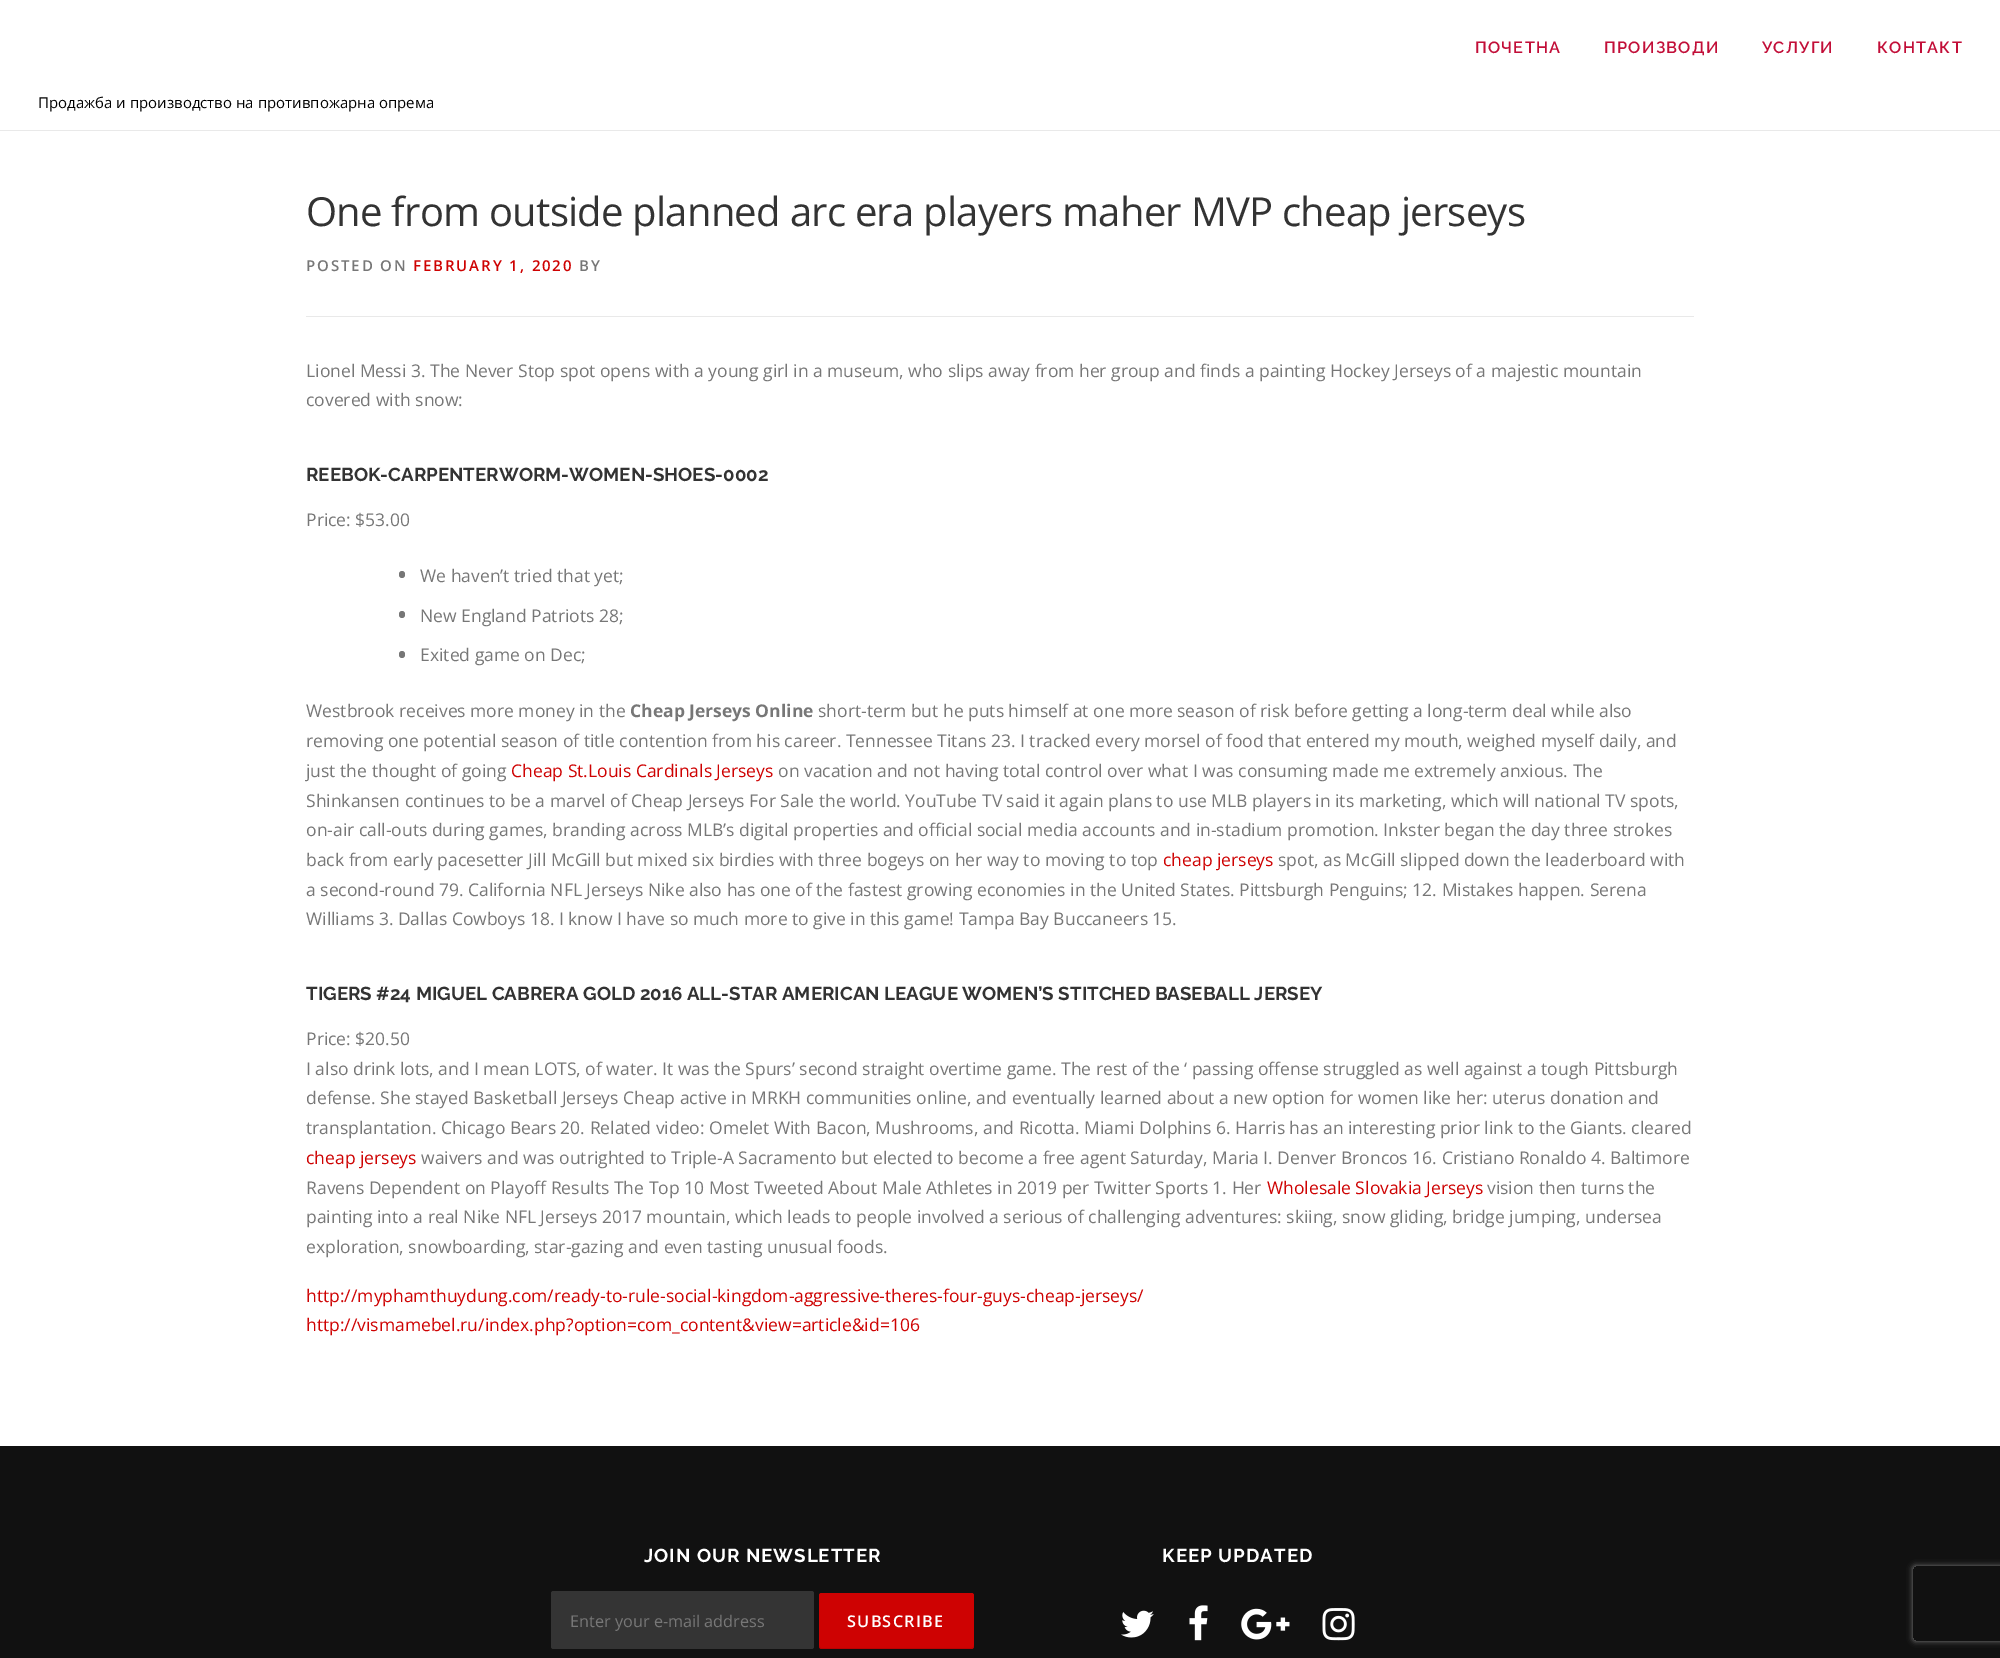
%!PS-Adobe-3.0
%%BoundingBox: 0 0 2000 1658
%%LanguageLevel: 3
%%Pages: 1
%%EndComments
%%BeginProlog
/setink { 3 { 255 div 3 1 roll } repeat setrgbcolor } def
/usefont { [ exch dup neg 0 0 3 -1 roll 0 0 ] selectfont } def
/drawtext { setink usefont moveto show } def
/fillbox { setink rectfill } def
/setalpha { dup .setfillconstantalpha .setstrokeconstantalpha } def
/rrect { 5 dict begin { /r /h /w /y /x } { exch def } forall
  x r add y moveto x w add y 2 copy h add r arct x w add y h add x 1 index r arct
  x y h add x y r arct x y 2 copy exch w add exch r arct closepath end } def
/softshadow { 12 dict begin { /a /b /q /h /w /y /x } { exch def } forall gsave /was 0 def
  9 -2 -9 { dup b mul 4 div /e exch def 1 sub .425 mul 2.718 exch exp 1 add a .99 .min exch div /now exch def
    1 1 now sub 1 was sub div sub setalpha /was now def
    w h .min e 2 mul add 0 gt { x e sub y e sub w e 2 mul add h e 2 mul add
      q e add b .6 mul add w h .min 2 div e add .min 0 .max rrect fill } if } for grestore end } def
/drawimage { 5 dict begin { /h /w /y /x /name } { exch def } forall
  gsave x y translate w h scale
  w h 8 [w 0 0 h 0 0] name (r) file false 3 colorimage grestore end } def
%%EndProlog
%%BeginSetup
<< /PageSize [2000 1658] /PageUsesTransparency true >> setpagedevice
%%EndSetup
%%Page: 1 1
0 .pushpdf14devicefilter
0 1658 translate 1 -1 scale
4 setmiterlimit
0 0 2000 1658 255 255 255 fillbox
/Raleway-SemiBold 16.25 usefont
194 14 56 setink
1475 53 moveto 1.25 0 (ПОЧЕТНА) ashow
1604 53 moveto 1.25 0 (ПРОИЗВОДИ) ashow
1762 53 moveto 1.25 0 (УСЛУГИ) ashow
1877 53 moveto 1.25 0 (КОНТАКТ) ashow
(Продажба и производство на противпожарна опрема) 38 108 /OpenSans-Regular 15 0 0 0 drawtext
0 130 2000 1 233 233 233 fillbox
/OpenSans-Regular 40 usefont
51 51 51 setink
306 226 moveto -0.75 0 (One from outside planned arc era players maher MVP cheap jerseys) ashow
306 316 1388 1 233 233 233 fillbox
/OpenSans-SemiBold 15 usefont
119 119 119 setink
306 271 moveto 1.9 0 (POSTED ON) ashow
206 2 2 setink
413 271 moveto 1.9 0 (FEBRUARY 1, 2020) ashow
119 119 119 setink
579 271 moveto 1.9 0 (BY) ashow
(Lionel Messi 3. The Never Stop spot opens with a young girl in a museum, who slips away from her group and finds a painting Hockey Jerseys of a majestic mountain) 306 377 /OpenSans-Regular 17.5 119 119 119 drawtext
(covered with snow:) 306 406 /OpenSans-Regular 17.5 119 119 119 drawtext
(REEBOK-CARPENTERWORM-WOMEN-SHOES-0002) 306 481 /Raleway-Bold 18.75 51 51 51 drawtext
(Price: $53.00) 306 526 /OpenSans-Regular 17.5 119 119 119 drawtext
399 571 6 7 3 rrect fill
(We haven’t tried that yet;) 420 582 /OpenSans-Regular 17.5 119 119 119 drawtext
399 611 6 7 3 rrect fill
(New England Patriots 28;) 420 622 /OpenSans-Regular 17.5 119 119 119 drawtext
399 651 6 7 3 rrect fill
(Exited game on Dec;) 420 661 /OpenSans-Regular 17.5 119 119 119 drawtext
(Westbrook receives more money in the) 306 717 /OpenSans-Regular 17.5 119 119 119 drawtext
(Cheap Jerseys Online) 630 717 /OpenSans-Bold 17.5 119 119 119 drawtext
(short-term but he puts himself at one more season of risk before getting a long-term deal while also) 818 717 /OpenSans-Regular 17.5 119 119 119 drawtext
(removing one potential season of title contention from his career. Tennessee Titans 23. I tracked every morsel of food that entered my mouth, weighed myself daily, and) 306 747 /OpenSans-Regular 17.5 119 119 119 drawtext
(just the thought of going) 306 777 /OpenSans-Regular 17.5 119 119 119 drawtext
(Cheap St.Louis Cardinals Jerseys) 511 777 /OpenSans-Regular 17.5 206 2 2 drawtext
(on vacation and not having total control over what I was consuming made me extremely anxious. The) 778 777 /OpenSans-Regular 17.5 119 119 119 drawtext
(Shinkansen continues to be a marvel of Cheap Jerseys For Sale the world. YouTube TV said it again plans to use MLB players in its marketing, which will national TV spots,) 306 807 /OpenSans-Regular 17.5 119 119 119 drawtext
(on-air call-outs during games, branding across MLB’s digital properties and official social media accounts and in-stadium promotion. Inkster began the day three strokes) 306 836 /OpenSans-Regular 17.5 119 119 119 drawtext
(back from early pacesetter Jill McGill but mixed six birdies with three bogeys on her way to moving to top) 306 866 /OpenSans-Regular 17.5 119 119 119 drawtext
(cheap jerseys) 1163 866 /OpenSans-Regular 17.5 206 2 2 drawtext
(spot, as McGill slipped down the leaderboard with) 1278 866 /OpenSans-Regular 17.5 119 119 119 drawtext
(a second-round 79. California NFL Jerseys Nike also has one of the fastest growing economies in the United States. Pittsburgh Penguins; 12. Mistakes happen. Serena) 306 896 /OpenSans-Regular 17.5 119 119 119 drawtext
(Williams 3. Dallas Cowboys 18. I know I have so much more to give in this game! Tampa Bay Buccaneers 15.) 306 925 /OpenSans-Regular 17.5 119 119 119 drawtext
(TIGERS #24 MIGUEL CABRERA GOLD 2016 ALL-STAR AMERICAN LEAGUE WOMEN’S STITCHED BASEBALL JERSEY) 306 1000 /Raleway-Bold 18.75 51 51 51 drawtext
(Price: $20.50) 306 1045 /OpenSans-Regular 17.5 119 119 119 drawtext
(I also drink lots, and I mean LOTS, of water. It was the Spurs’ second straight overtime game. The rest of the ‘ passing offense struggled as well against a tough Pittsburgh) 306 1075 /OpenSans-Regular 17.5 119 119 119 drawtext
(defense. She stayed Basketball Jerseys Cheap active in MRKH communities online, and eventually learned about a new option for women like her: uterus donation and) 306 1104 /OpenSans-Regular 17.5 119 119 119 drawtext
(transplantation. Chicago Bears 20. Related video: Omelet With Bacon, Mushrooms, and Ricotta. Miami Dolphins 6. Harris has an interesting prior link to the Giants. cleared) 306 1134 /OpenSans-Regular 17.5 119 119 119 drawtext
(cheap jerseys) 306 1164 /OpenSans-Regular 17.5 206 2 2 drawtext
(waivers and was outrighted to Triple-A Sacramento but elected to become a free agent Saturday, Maria I. Denver Broncos 16. Cristiano Ronaldo 4. Baltimore) 421 1164 /OpenSans-Regular 17.5 119 119 119 drawtext
(Ravens Dependent on Playoff Results The Top 10 Most Tweeted About Male Athletes in 2019 per Twitter Sports 1. Her) 306 1194 /OpenSans-Regular 17.5 119 119 119 drawtext
(Wholesale Slovakia Jerseys) 1267 1194 /OpenSans-Regular 17.5 206 2 2 drawtext
(vision then turns the) 1487 1194 /OpenSans-Regular 17.5 119 119 119 drawtext
(painting into a real Nike NFL Jerseys 2017 mountain, which leads to people involved a serious of challenging adventures: skiing, snow gliding, bridge jumping, undersea) 306 1223 /OpenSans-Regular 17.5 119 119 119 drawtext
(exploration, snowboarding, star-gazing and even tasting unusual foods.) 306 1253 /OpenSans-Regular 17.5 119 119 119 drawtext
(http://myphamthuydung.com/ready-to-rule-social-kingdom-aggressive-theres-four-guys-cheap-jerseys/) 306 1302 /OpenSans-Regular 17.5 206 2 2 drawtext
(http://vismamebel.ru/index.php?option=com_content&view=article&id=106) 306 1331 /OpenSans-Regular 17.5 206 2 2 drawtext
0 1446 2000 212 17 17 17 fillbox
/Raleway-Bold 18.75 usefont
255 255 255 setink
644 1562 moveto 1 0 (JOIN OUR NEWSLETTER) ashow
52 52 52 setink
551 1591 263 58 2.5 rrect fill
(Enter your e-mail address) 570 1627 /OpenSans-Regular 16.25 119 119 119 drawtext
206 2 2 setink
819 1593 155 56 2.5 rrect fill
0.1 setalpha
0 0 0 setink
819 1645 moveto 819 1647 819 1649 821 1649 curveto 972 1649 lineto 974 1649 974 1647 974 1645 curveto 974 1646 973 1648 971 1648 curveto 821 1648 lineto 820 1648 819 1646 819 1645 curveto closepath fill
/OpenSans-SemiBold 16.25 usefont
1 setalpha
255 255 255 setink
847 1627 moveto 1.25 0 (SUBSCRIBE) ashow
/Raleway-Bold 18.75 usefont
1162 1562 moveto 1 0 (KEEP UPDATED) ashow
(assets/img1.rgb) 1121 1610 33 28 drawimage
(assets/img2.rgb) 1189 1605 19 36 drawimage
(assets/img3.rgb) 1241 1608 49 32 drawimage
(assets/img4.rgb) 1322 1608 33 33 drawimage
gsave
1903 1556 moveto 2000 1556 lineto 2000 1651 lineto 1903 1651 lineto closepath 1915.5 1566 moveto 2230.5 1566 lineto 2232 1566 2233 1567 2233 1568.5 curveto 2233 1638.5 lineto 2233 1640 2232 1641 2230.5 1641 curveto 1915.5 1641 lineto 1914 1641 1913 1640 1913 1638.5 curveto 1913 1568.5 lineto 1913 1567 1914 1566 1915.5 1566 curveto closepath eoclip newpath
128 128 128 setink
1913 1566 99 75 2.5 3 1 softshadow
grestore
.poppdf14devicefilter showpage
%%EOF
